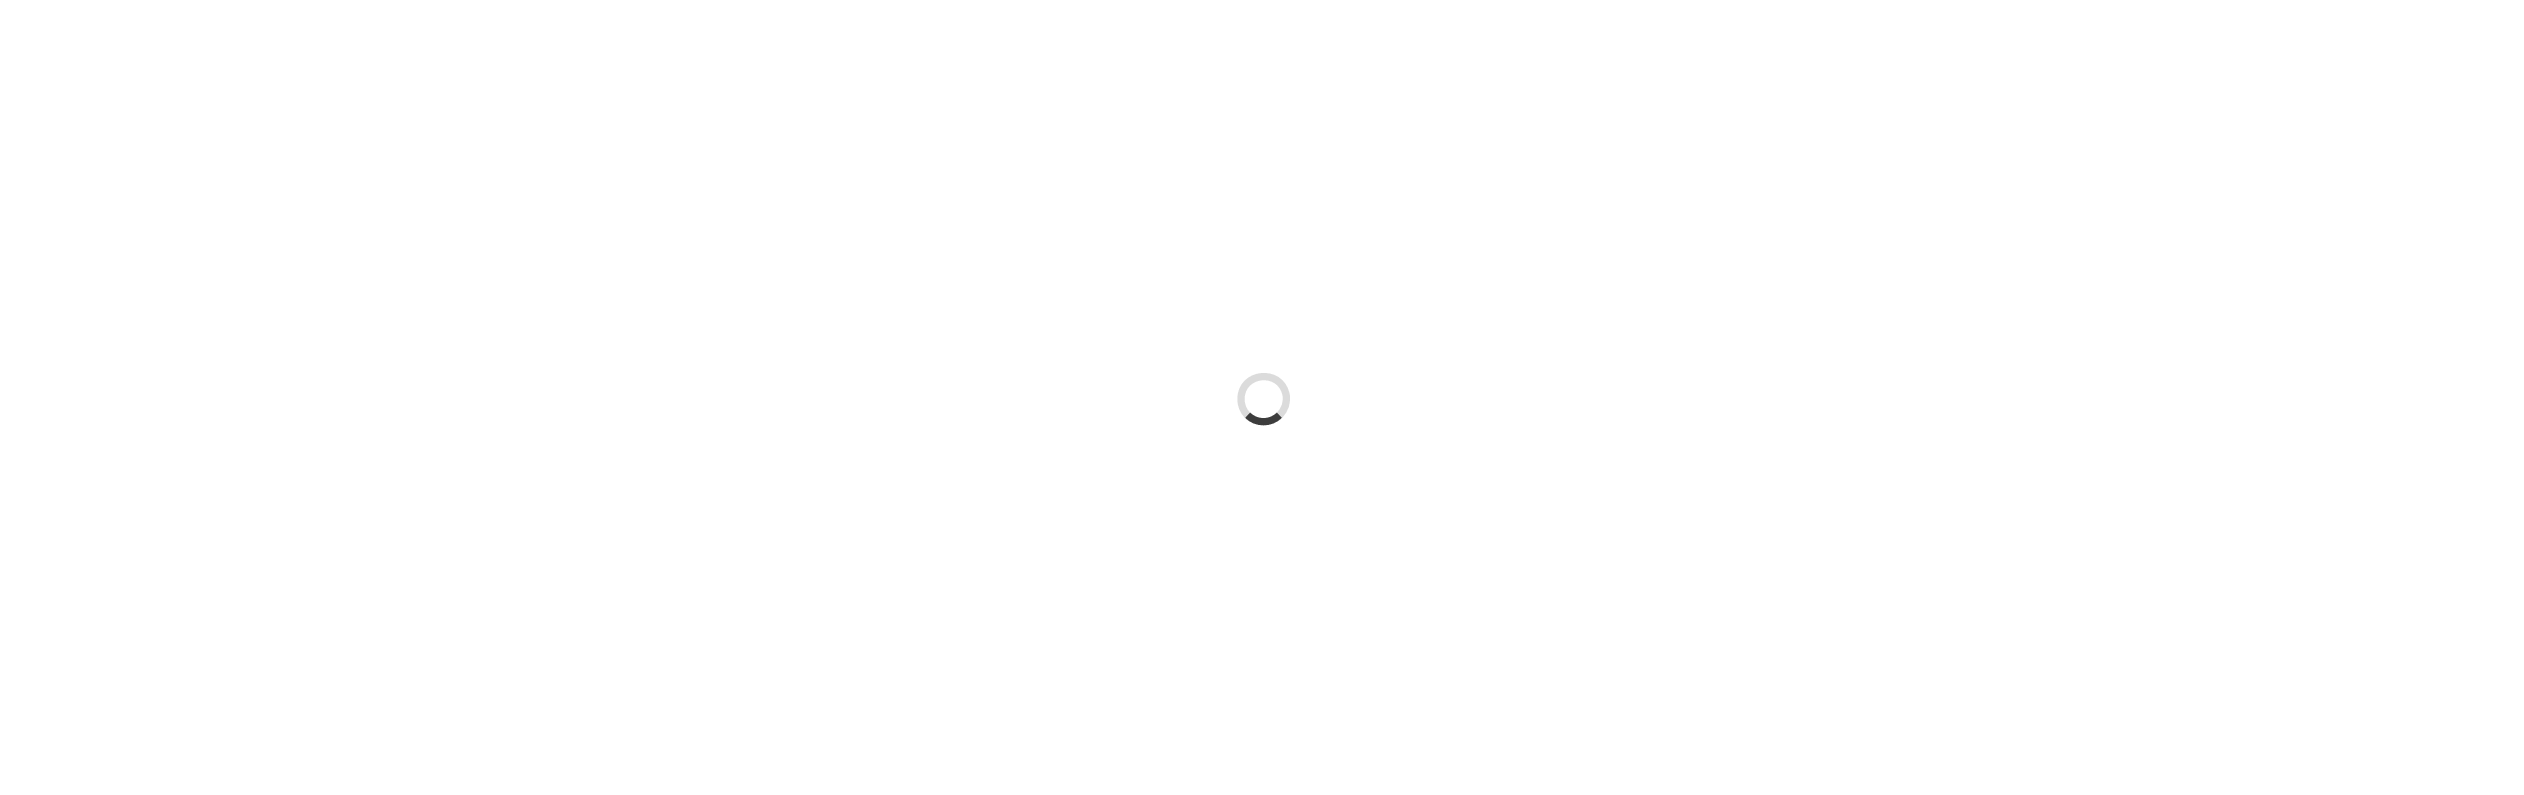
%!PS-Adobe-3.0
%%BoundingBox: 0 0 2524 795
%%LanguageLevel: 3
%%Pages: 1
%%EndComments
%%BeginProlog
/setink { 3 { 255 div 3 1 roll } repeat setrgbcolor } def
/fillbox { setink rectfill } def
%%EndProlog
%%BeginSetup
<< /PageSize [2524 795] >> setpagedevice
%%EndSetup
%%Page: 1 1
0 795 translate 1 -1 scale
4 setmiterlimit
0 0 2524 795 255 255 255 fillbox
61 61 61 setink
7 setlinewidth
1279.5 415 moveto 1271 424 1256 424 1247.5 415 curveto stroke
219 219 219 setink
1247.5 415 moveto 1243 411 1241 405 1241 399 curveto 1241 372 1280.5 368 1286 394.5 curveto 1287.5 402 1285 410 1279.5 415 curveto stroke
showpage
%%EOF
